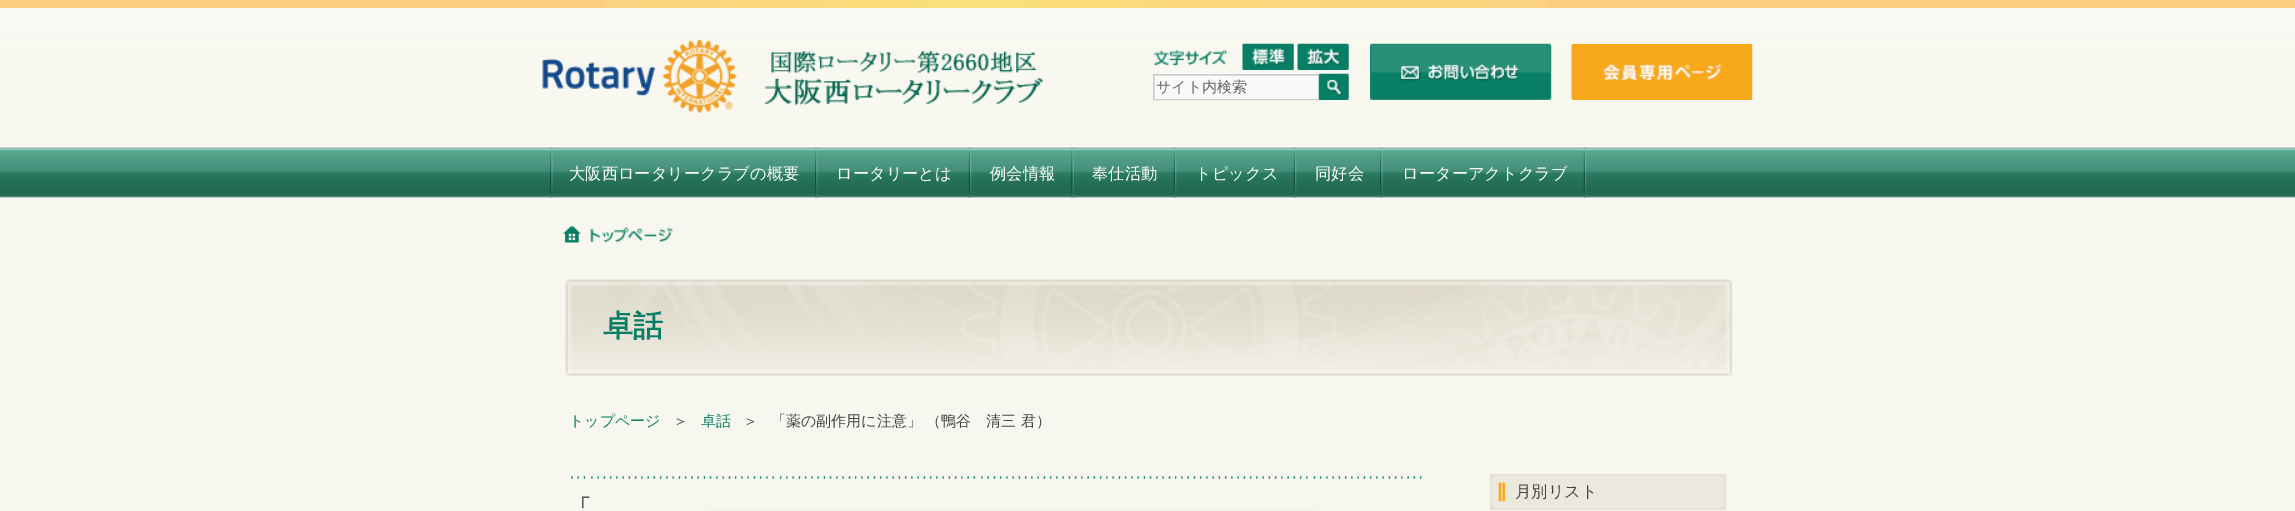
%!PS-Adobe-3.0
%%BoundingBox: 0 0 2295 511
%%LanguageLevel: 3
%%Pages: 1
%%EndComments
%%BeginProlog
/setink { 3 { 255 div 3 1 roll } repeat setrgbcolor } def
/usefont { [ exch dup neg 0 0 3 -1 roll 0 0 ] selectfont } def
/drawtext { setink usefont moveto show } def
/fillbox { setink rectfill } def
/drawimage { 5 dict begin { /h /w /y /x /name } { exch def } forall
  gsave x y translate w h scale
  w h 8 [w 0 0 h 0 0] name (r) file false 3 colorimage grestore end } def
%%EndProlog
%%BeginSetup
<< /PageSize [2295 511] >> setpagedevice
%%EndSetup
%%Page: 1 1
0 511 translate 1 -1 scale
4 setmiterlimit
0 0 2295 511 248 247 239 fillbox
(assets/img1.rgb) 0 8 2295 191 drawimage
0 0 2295 8 252 205 129 fillbox
(assets/img2.rgb) 603 0 944 8 drawimage
(assets/img3.rgb) 542 40 501 73 drawimage
(assets/img4.rgb) 1153 49 75 17 drawimage
(assets/img5.rgb) 1242 43 52 27 drawimage
(assets/img6.rgb) 1297 43 52 27 drawimage
1155 76 164 23 249 249 249 fillbox
gsave
1154 75 167 24 rectclip
224 224 224 setink
1030 -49 moveto 1445 -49 lineto 1445 222 lineto 1030 222 lineto closepath 1155 76 moveto 1322 76 lineto 1322 100 lineto 1155 100 lineto closepath eofill
grestore
204 204 204 setink
1153.5 74.5 169 25 rectstroke
(サイト内検索) 1156 92 /WenQuanYiZenHei-Medium 15 102 102 102 drawtext
(assets/img7.rgb) 1318 73 31 27 drawimage
(assets/img8.rgb) 1370 43 182 57 drawimage
(assets/img9.rgb) 1571 43 182 57 drawimage
(assets/img10.rgb) 550 147 3 51 drawimage
(assets/img11.rgb) 815 147 3 51 drawimage
(大阪西ロータリークラブの概要) 569 179 /WenQuanYiZenHei-Medium 16.25 255 255 255 drawtext
(assets/img12.rgb) 968 147 4 51 drawimage
(ロータリーとは) 836 179 /WenQuanYiZenHei-Medium 16.25 255 255 255 drawtext
(assets/img13.rgb) 1071 147 3 51 drawimage
(例会情報) 990 179 /WenQuanYiZenHei-Medium 16.25 255 255 255 drawtext
(assets/img12.rgb) 1173 147 4 51 drawimage
(奉仕活動) 1092 179 /WenQuanYiZenHei-Medium 16.25 255 255 255 drawtext
(assets/img12.rgb) 1293 147 4 51 drawimage
(トピックス) 1195 179 /WenQuanYiZenHei-Medium 16.25 255 255 255 drawtext
(assets/img11.rgb) 1380 147 3 51 drawimage
(同好会) 1315 179 /WenQuanYiZenHei-Medium 16.25 255 255 255 drawtext
(assets/img14.rgb) 1583 147 4 51 drawimage
(ローターアクトクラブ) 1402 179 /WenQuanYiZenHei-Medium 16.25 255 255 255 drawtext
(assets/img15.rgb) 563 226 110 17 drawimage
(assets/img16.rgb) 565 279 1168 97 drawimage
(卓話) 603 336 /WenQuanYiZenHei-Bold 30 8 126 100 drawtext
(トップページ) 569 426 /WenQuanYiZenHei-Medium 15 8 126 100 drawtext
(＞) 673 426 /WenQuanYiZenHei-Medium 15 67 67 67 drawtext
(卓話) 701 426 /WenQuanYiZenHei-Medium 15 8 126 100 drawtext
(＞) 743 426 /WenQuanYiZenHei-Medium 15 67 67 67 drawtext
(「薬の副作用に注意」 （鴨谷　清三 君）) 771 426 /WenQuanYiZenHei-Medium 15 67 67 67 drawtext
(assets/img17.rgb) 1490 474 237 36 drawimage
(月別リスト) 1515 497 /WenQuanYiZenHei-Medium 16.25 67 67 67 drawtext
(assets/img18.rgb) 571 476 851 3 drawimage
(assets/img19.rgb) 704 506 614 5 drawimage
(「) 569 515 /WenQuanYiZenHei-Bold 22 85 85 85 drawtext
showpage
%%EOF
